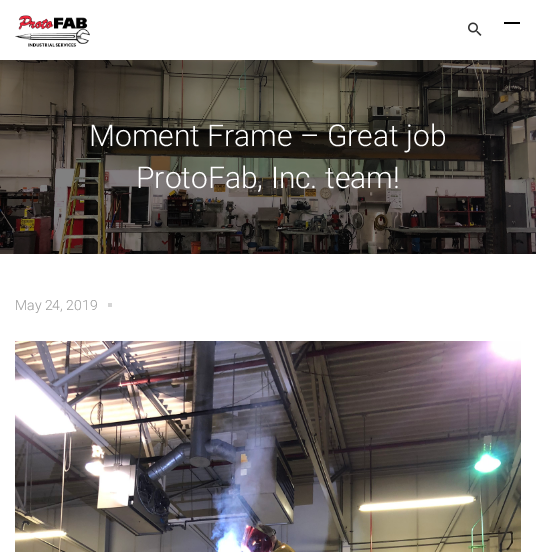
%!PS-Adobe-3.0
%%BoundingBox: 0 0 536 552
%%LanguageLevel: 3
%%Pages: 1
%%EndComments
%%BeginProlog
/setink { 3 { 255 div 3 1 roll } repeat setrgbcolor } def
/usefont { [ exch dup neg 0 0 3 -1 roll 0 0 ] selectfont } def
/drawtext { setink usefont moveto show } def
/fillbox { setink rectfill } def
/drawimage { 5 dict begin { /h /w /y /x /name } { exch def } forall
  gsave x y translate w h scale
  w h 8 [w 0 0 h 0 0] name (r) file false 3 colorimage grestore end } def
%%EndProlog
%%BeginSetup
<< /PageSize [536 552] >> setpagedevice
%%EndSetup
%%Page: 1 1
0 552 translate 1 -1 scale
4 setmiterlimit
0 0 536 552 255 255 255 fillbox
(assets/img1.rgb) 15 15 75 32 drawimage
(assets/img2.rgb) 468 22 14 14 drawimage
504 22 16 2 0 0 0 fillbox
(assets/img3.rgb) 0 60 536 194 drawimage
(Moment Frame – Great job) 89 146 /Roboto-Light 30 255 255 255 drawtext
(ProtoFab, Inc. team!) 136 188 /Roboto-Light 30 255 255 255 drawtext
(May 24, 2019) 15 310 /Roboto-Light 14 153 153 153 drawtext
108 303 4 4 214 214 214 fillbox
(assets/img4.rgb) 15 341 506 211 drawimage
showpage
%%EOF
